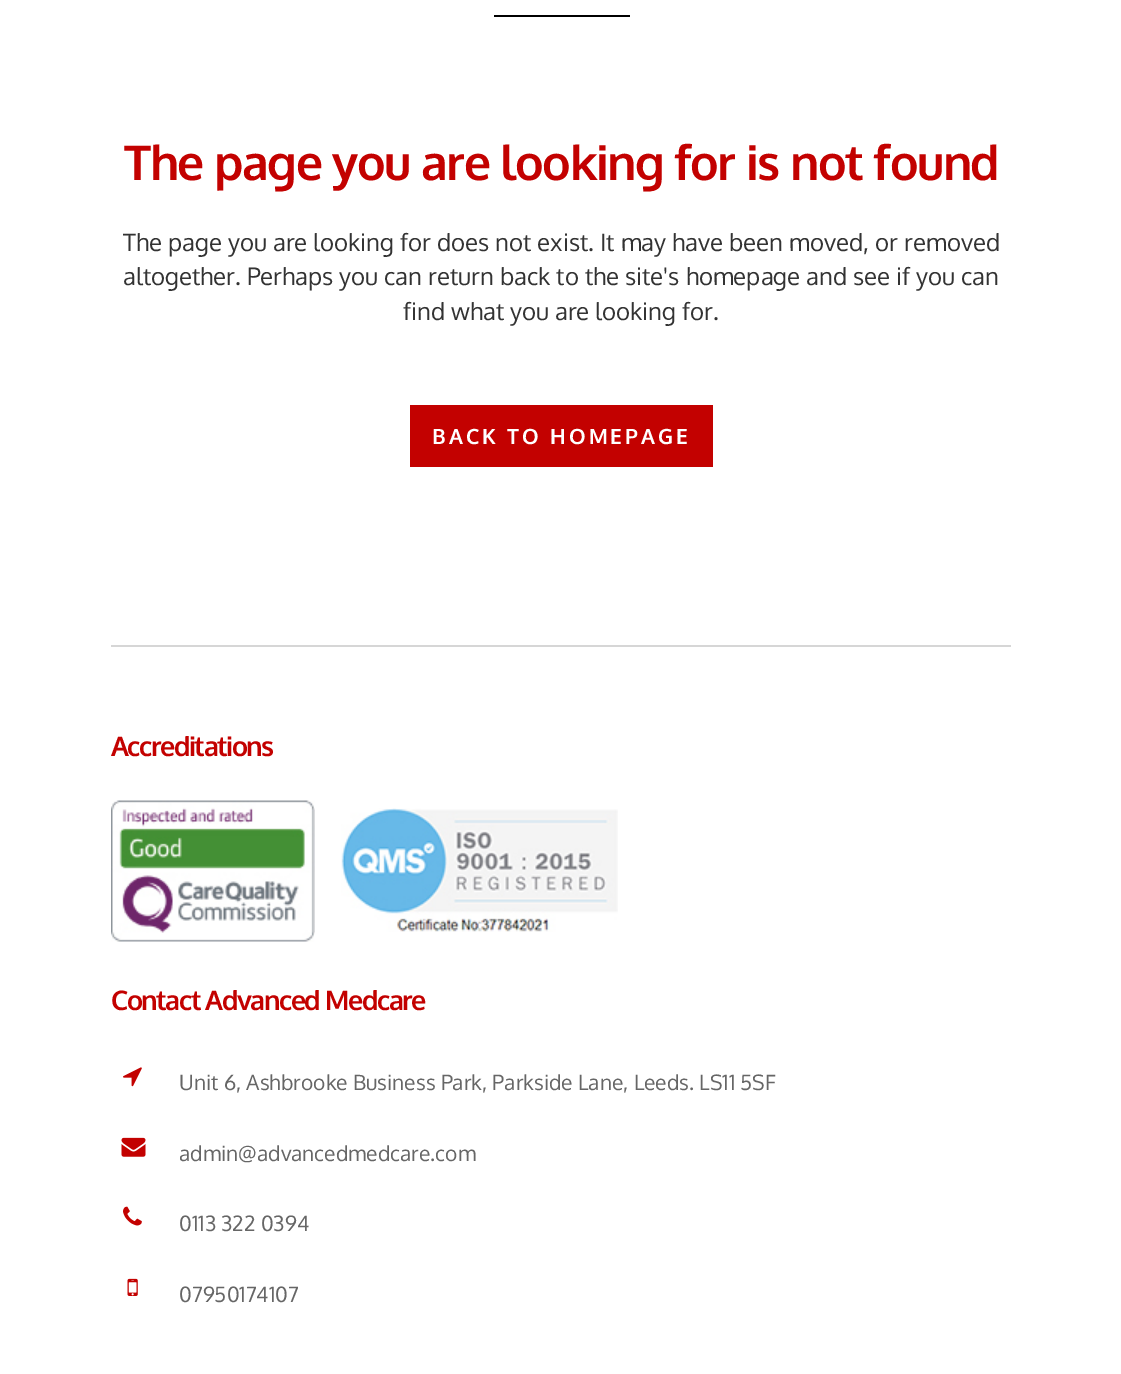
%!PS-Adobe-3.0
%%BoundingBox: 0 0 1121 1374
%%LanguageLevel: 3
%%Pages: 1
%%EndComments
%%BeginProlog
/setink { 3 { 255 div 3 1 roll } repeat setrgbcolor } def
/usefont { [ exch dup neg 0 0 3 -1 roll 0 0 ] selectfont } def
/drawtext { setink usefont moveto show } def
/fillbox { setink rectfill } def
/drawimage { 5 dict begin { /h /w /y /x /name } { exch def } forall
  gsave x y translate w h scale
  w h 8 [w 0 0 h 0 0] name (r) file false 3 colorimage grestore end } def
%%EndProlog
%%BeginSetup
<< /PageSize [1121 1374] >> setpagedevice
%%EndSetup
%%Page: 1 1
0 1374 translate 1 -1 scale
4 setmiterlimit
0 0 1121 1374 255 255 255 fillbox
494 15 136 2 0 0 0 fillbox
/Oxygen-Bold 48 usefont
195 1 0 setink
124 180 moveto -1.5 0 (The page you are looking for is not found) ashow
(The page you are looking for does not exist. It may have been moved, or removed) 123 251 /Oxygen-Regular 24 51 51 51 drawtext
(altogether. Perhaps you can return back to the site's homepage and see if you can) 123 285 /Oxygen-Regular 24 51 51 51 drawtext
(find what you are looking for.) 403 320 /Oxygen-Regular 24 51 51 51 drawtext
410 405 303 62 195 1 0 fillbox
/Oxygen-Bold 21 usefont
255 255 255 setink
432 444 moveto 3 0 (BACK TO HOMEPAGE) ashow
111 645 900 2 214 214 214 fillbox
/Oxygen-Bold 27 usefont
195 1 0 setink
111 756 moveto -1.5 0 (Accreditations) ashow
(assets/img1.rgb) 111 800 204 142 drawimage
(assets/img2.rgb) 341 808 277 124 drawimage
111 1010 moveto -1.5 0 (Contact Advanced Medcare) ashow
(assets/img3.rgb) 123 1067 19 20 drawimage
(Unit 6, Ashbrooke Business Park, Parkside Lane, Leeds. LS11 5SF) 179 1090 /Oxygen-Regular 21 102 102 102 drawtext
(assets/img4.rgb) 121 1137 25 20 drawimage
(admin@advancedmedcare.com) 179 1161 /Oxygen-Regular 21 102 102 102 drawtext
(assets/img5.rgb) 123 1206 19 20 drawimage
(0113 322 0394) 179 1231 /Oxygen-Regular 21 102 102 102 drawtext
(assets/img6.rgb) 127 1278 11 18 drawimage
(07950174107) 179 1302 /Oxygen-Regular 21 102 102 102 drawtext
showpage
%%EOF
